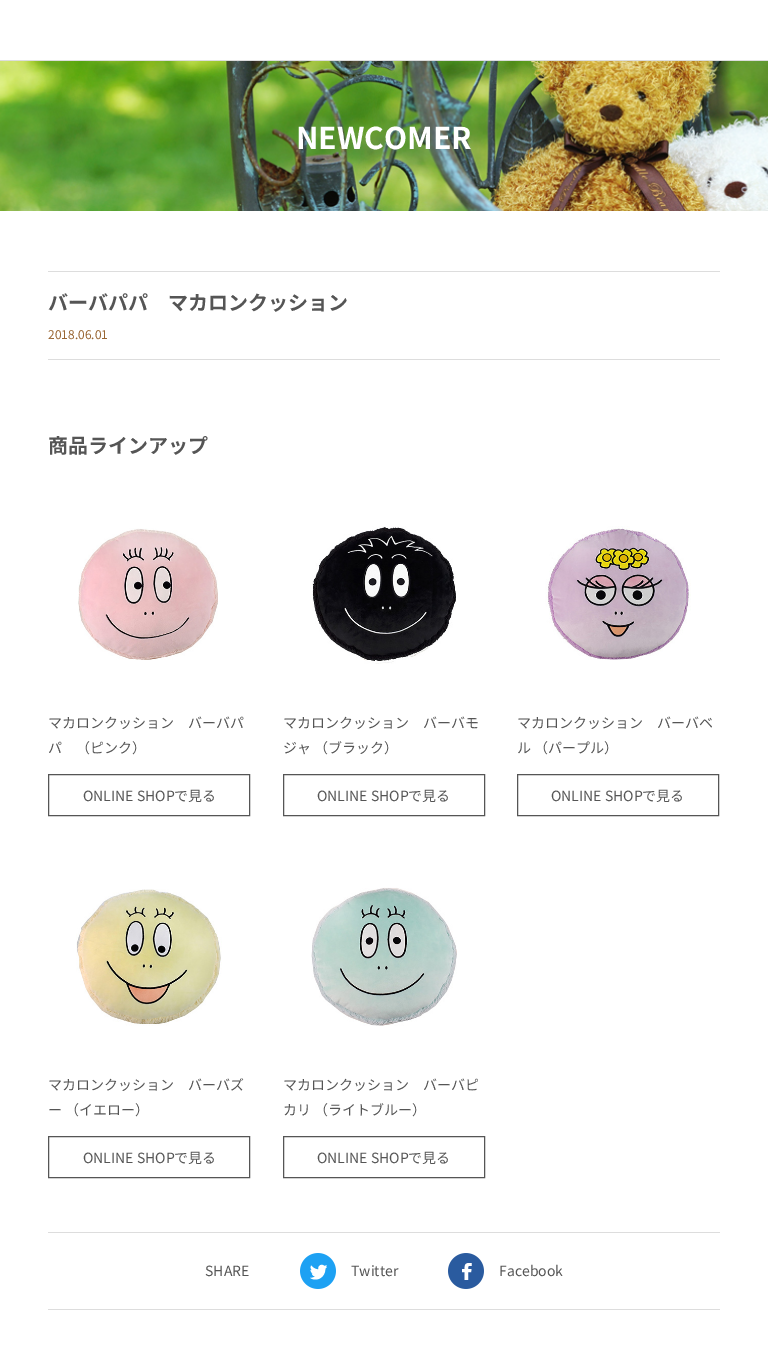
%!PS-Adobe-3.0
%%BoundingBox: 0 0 768 1358
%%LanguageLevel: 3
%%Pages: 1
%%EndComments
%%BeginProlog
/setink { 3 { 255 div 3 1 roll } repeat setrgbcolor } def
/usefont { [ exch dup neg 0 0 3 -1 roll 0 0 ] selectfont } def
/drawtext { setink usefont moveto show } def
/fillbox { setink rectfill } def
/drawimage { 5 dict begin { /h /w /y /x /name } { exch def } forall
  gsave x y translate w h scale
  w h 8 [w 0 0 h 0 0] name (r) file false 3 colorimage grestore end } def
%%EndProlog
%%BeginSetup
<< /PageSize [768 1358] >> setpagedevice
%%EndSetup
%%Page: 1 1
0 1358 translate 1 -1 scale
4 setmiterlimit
0 0 768 1358 255 255 255 fillbox
0 60 768 1 221 221 221 fillbox
(assets/img1.rgb) 0 61 768 150 drawimage
(NEWCOMER) 296 149 /NotoSansJP-Bold 30 255 255 255 drawtext
48 271 672 1 221 221 221 fillbox
48 359 672 1 221 221 221 fillbox
(バーバパパ　マカロンクッション) 48 310 /NotoSansJP-Bold 20 85 85 85 drawtext
(2018.06.01) 48 339 /NotoSansJP-Regular 12 153 102 51 drawtext
(商品ラインアップ) 48 453 /NotoSansJP-Bold 20 85 85 85 drawtext
(assets/img2.rgb) 78 528 140 132 drawimage
(マカロンクッション　バーバパ) 48 728 /NotoSansJP-Regular 14 85 85 85 drawtext
(パ　（ピンク）) 48 753 /NotoSansJP-Regular 14 85 85 85 drawtext
48.5 774.5 201 41 rectstroke
(ONLINE SHOPで見る) 83 801 /NotoSansJP-Regular 14 85 85 85 drawtext
(assets/img3.rgb) 312 526 144 138 drawimage
(マカロンクッション　バーバモ) 283 728 /NotoSansJP-Regular 14 85 85 85 drawtext
(ジャ （ブラック）) 283 753 /NotoSansJP-Regular 14 85 85 85 drawtext
283.5 774.5 201 41 rectstroke
(ONLINE SHOPで見る) 317 801 /NotoSansJP-Regular 14 85 85 85 drawtext
(assets/img4.rgb) 545 526 146 134 drawimage
(マカロンクッション　バーバベ) 517 728 /NotoSansJP-Regular 14 85 85 85 drawtext
(ル （パープル）) 517 753 /NotoSansJP-Regular 14 85 85 85 drawtext
517.5 774.5 201 41 rectstroke
(ONLINE SHOPで見る) 551 801 /NotoSansJP-Regular 14 85 85 85 drawtext
(assets/img5.rgb) 76 889 146 137 drawimage
(マカロンクッション　バーバズ) 48 1090 /NotoSansJP-Regular 14 85 85 85 drawtext
(ー （イエロー）) 48 1115 /NotoSansJP-Regular 14 85 85 85 drawtext
48.5 1136.5 201 41 rectstroke
(ONLINE SHOPで見る) 83 1163 /NotoSansJP-Regular 14 85 85 85 drawtext
(assets/img6.rgb) 311 887 146 139 drawimage
(マカロンクッション　バーバピ) 283 1090 /NotoSansJP-Regular 14 85 85 85 drawtext
(カリ （ライトブルー）) 283 1115 /NotoSansJP-Regular 14 85 85 85 drawtext
283.5 1136.5 201 41 rectstroke
(ONLINE SHOPで見る) 317 1163 /NotoSansJP-Regular 14 85 85 85 drawtext
48 1232 672 1 221 221 221 fillbox
48 1309 672 1 221 221 221 fillbox
(SHARE) 205 1276 /NotoSansJP-Regular 14 85 85 85 drawtext
(assets/img7.rgb) 300 1253 36 36 drawimage
(Twitter) 351 1276 /NotoSansJP-Regular 14 85 85 85 drawtext
(assets/img8.rgb) 448 1253 36 36 drawimage
(Facebook) 499 1276 /NotoSansJP-Regular 14 85 85 85 drawtext
showpage
%%EOF
